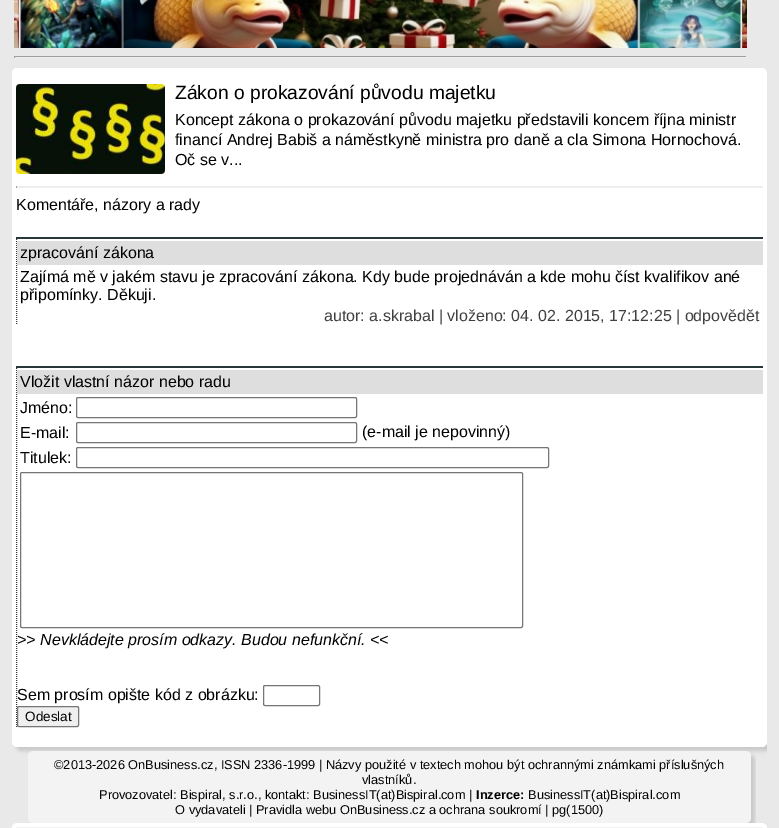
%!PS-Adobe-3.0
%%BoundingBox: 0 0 779 828
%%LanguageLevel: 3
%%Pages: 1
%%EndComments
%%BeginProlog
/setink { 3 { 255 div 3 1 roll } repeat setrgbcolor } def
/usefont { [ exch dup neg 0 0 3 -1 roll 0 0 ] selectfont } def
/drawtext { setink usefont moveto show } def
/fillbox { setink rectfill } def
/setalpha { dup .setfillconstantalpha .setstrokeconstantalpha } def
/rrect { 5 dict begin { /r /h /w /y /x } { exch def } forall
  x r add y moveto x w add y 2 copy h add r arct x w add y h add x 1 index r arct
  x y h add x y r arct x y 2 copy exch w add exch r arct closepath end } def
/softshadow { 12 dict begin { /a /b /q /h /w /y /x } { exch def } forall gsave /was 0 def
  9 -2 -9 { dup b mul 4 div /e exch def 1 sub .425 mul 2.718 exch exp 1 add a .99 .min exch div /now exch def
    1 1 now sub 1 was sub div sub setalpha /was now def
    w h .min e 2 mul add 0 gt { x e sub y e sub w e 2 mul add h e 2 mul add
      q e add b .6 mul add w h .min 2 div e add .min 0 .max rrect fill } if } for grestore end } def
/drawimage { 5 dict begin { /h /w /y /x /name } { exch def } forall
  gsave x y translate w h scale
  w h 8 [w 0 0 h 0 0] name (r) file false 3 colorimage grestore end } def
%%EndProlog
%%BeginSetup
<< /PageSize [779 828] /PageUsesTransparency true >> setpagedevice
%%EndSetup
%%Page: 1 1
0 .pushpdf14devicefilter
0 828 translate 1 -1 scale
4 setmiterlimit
0 0 779 828 233 233 233 fillbox
(assets/img1.rgb) 14 0 733 48 drawimage
14 56 733 1 159 159 159 fillbox
746 56 1 2 238 238 238 fillbox
14 57 733 1 238 238 238 fillbox
14 56 1 2 159 159 159 fillbox
gsave
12 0 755 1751 rectclip
200 200 200 setink
16 72 755 679 5 2 1 softshadow
grestore
255 255 255 setink
12 68 755 679 5 rrect fill
(assets/img2.rgb) 16 84 149 90 drawimage
(Zákon o prokazování původu majetku) 175 99 /LiberationSans-Regular 19.25 0 0 0 drawtext
(Koncept zákona o prokazování původu majetku představili koncem října ministr) 175 125 /LiberationSans-Regular 16 0 0 0 drawtext
(financí Andrej Babiš a náměstkyně ministra pro daně a cla Simona Hornochová.) 175 145 /LiberationSans-Regular 16 0 0 0 drawtext
(Oč se v...) 175 165 /LiberationSans-Regular 16 0 0 0 drawtext
16 186 747 1 238 238 238 fillbox
762 186 1 2 238 238 238 fillbox
16 187 747 1 238 238 238 fillbox
16 186 1 2 159 159 159 fillbox
(Komentáře, názory a rady) 16 210 /LiberationSans-Regular 16 0 0 0 drawtext
16 237 747 2 40 56 56 fillbox
[1 1] 0 setdash
16.5 237 moveto 16.5 325 lineto stroke
17 241 746 24 222 222 222 fillbox
(zpracování zákona) 20 258 /LiberationSans-Regular 16 0 0 0 drawtext
(Zajímá mě v jakém stavu je zpracování zákona. Kdy bude projednáván a kde mohu číst kvalifikov ané) 20 282 /LiberationSans-Regular 16 0 0 0 drawtext
(připomínky. Děkuji.) 20 300 /LiberationSans-Regular 16 0 0 0 drawtext
(autor: a.skrabal | vloženo: 04. 02. 2015, 17:12:25 | odpovědět) 324 321 /LiberationSans-Regular 16 64 64 64 drawtext
16 366 747 2 40 56 56 fillbox
16.5 366 moveto 16.5 727 lineto stroke
17 370 746 24 222 222 222 fillbox
(Vložit vlastní názor nebo radu) 20 387 /LiberationSans-Regular 16 0 0 0 drawtext
(Jméno:) 20 413 /LiberationSans-Regular 16 0 0 0 drawtext
118 118 118 setink
[] 0 setdash
76.5 397.5 280 20 1.5 rrect stroke
(E-mail:) 20 438 /LiberationSans-Regular 16 0 0 0 drawtext
118 118 118 setink
76.5 422.5 280 20 1.5 rrect stroke
(\(e-mail je nepovinný\)) 362 437 /LiberationSans-Regular 16 0 0 0 drawtext
(Titulek:) 20 463 /LiberationSans-Regular 16 0 0 0 drawtext
118 118 118 setink
76.5 447.5 472 20 1.5 rrect stroke
20.5 472.5 502 155 1.5 rrect stroke
(>> Nevkládejte prosím odkazy. Budou nefunkční. <<) 17 645 /LiberationSans-Italic 16 0 0 0 drawtext
(Sem prosím opište kód z obrázku:) 17 700 /LiberationSans-Regular 16 0 0 0 drawtext
118 118 118 setink
263.5 685.5 56 20 1.5 rrect stroke
239 239 239 setink
17.5 706.5 61 20 1.5 rrect gsave fill grestore
118 118 118 setink
stroke
(Odeslat) 25 721 /LiberationSans-Regular 13.5 0 0 0 drawtext
gsave
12 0 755 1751 rectclip
200 200 200 setink
16 827 755 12 5 2 1 softshadow
grestore
255 255 255 setink
12 823 755 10 5 rrect fill
16 827 747 1 242 242 242 fillbox
gsave
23 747 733 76 rectclip
200 200 200 setink
32 755 723 72 5 2 1 softshadow
grestore
243 243 243 setink
28 751 723 72 5 rrect fill
(©2013-2026 OnBusiness.cz, ISSN 2336-1999 | Názvy použité v textech mohou být ochrannými známkami příslušných) 54 769 /LiberationSans-Regular 12.8 0 0 0 drawtext
(vlastníků.) 362 784 /LiberationSans-Regular 12.8 0 0 0 drawtext
(Provozovatel: Bispiral, s.r.o., kontakt: BusinessIT\(at\)Bispiral.com |) 99 799 /LiberationSans-Regular 12.8 0 0 0 drawtext
(Inzerce:) 476 799 /LiberationSans-Bold 12.8 0 0 0 drawtext
(BusinessIT\(at\)Bispiral.com) 528 799 /LiberationSans-Regular 12.8 0 0 0 drawtext
(O vydavateli | Pravidla webu OnBusiness.cz a ochrana soukromí | pg\(1500\)) 175 814 /LiberationSans-Regular 12.8 0 0 0 drawtext
.poppdf14devicefilter showpage
%%EOF
